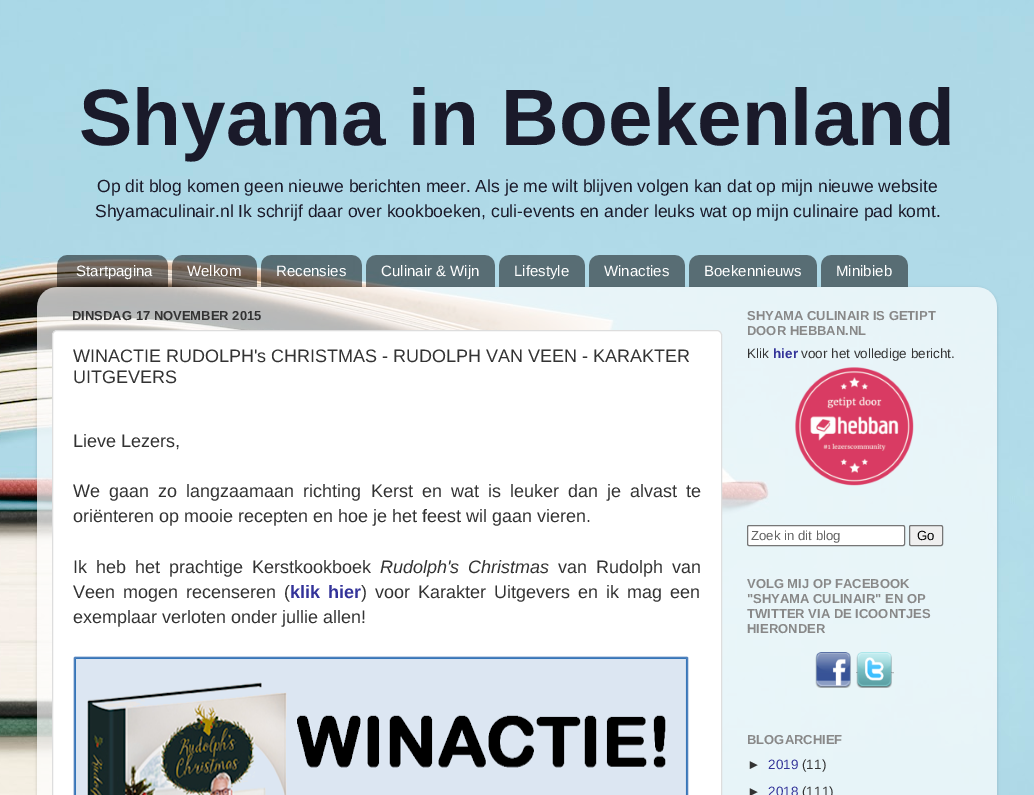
%!PS-Adobe-3.0
%%BoundingBox: 0 0 1034 795
%%LanguageLevel: 3
%%Pages: 1
%%EndComments
%%BeginProlog
/setink { 3 { 255 div 3 1 roll } repeat setrgbcolor } def
/usefont { [ exch dup neg 0 0 3 -1 roll 0 0 ] selectfont } def
/drawtext { setink usefont moveto show } def
/fillbox { setink rectfill } def
/setalpha { dup .setfillconstantalpha .setstrokeconstantalpha } def
/rrect { 5 dict begin { /r /h /w /y /x } { exch def } forall
  x r add y moveto x w add y 2 copy h add r arct x w add y h add x 1 index r arct
  x y h add x y r arct x y 2 copy exch w add exch r arct closepath end } def
/softshadow { 12 dict begin { /a /b /q /h /w /y /x } { exch def } forall gsave /was 0 def
  9 -2 -9 { dup b mul 4 div /e exch def 1 sub .425 mul 2.718 exch exp 1 add a .99 .min exch div /now exch def
    1 1 now sub 1 was sub div sub setalpha /was now def
    w h .min e 2 mul add 0 gt { x e sub y e sub w e 2 mul add h e 2 mul add
      q e add b .6 mul add w h .min 2 div e add .min 0 .max rrect fill } if } for grestore end } def
/drawimage { 5 dict begin { /h /w /y /x /name } { exch def } forall
  gsave x y translate w h scale
  w h 8 [w 0 0 h 0 0] name (r) file false 3 colorimage grestore end } def
%%EndProlog
%%BeginSetup
<< /PageSize [1034 795] /PageUsesTransparency true >> setpagedevice
%%EndSetup
%%Page: 1 1
0 .pushpdf14devicefilter
0 795 translate 1 -1 scale
4 setmiterlimit
0 0 1034 795 255 255 255 fillbox
(assets/img1.rgb) 0 0 1034 795 drawimage
(Shyama in Boekenland) 79 145 /LiberationSans-Bold 80 26 26 42 drawtext
(Op dit blog komen geen nieuwe berichten meer. Als je me wilt blijven volgen kan dat op mijn nieuwe website) 97 192 /LiberationSans-Regular 17.55 26 26 42 drawtext
(Shyamaculinair.nl Ik schrijf daar over kookboeken, culi-events en ander leuks wat op mijn culinaire pad komt.) 95 217 /LiberationSans-Regular 17.55 26 26 42 drawtext
(assets/img2.rgb) 57 255 111 32 drawimage
(Startpagina) 76 276 /LiberationSans-Regular 15 255 255 255 drawtext
(assets/img3.rgb) 172 255 85 32 drawimage
(Welkom) 187 276 /LiberationSans-Regular 15 255 255 255 drawtext
(assets/img4.rgb) 261 255 101 32 drawimage
(Recensies) 276 276 /LiberationSans-Regular 15 255 255 255 drawtext
(assets/img5.rgb) 366 255 129 32 drawimage
(Culinair & Wijn) 381 276 /LiberationSans-Regular 15 255 255 255 drawtext
(assets/img6.rgb) 499 255 86 32 drawimage
(Lifestyle) 514 276 /LiberationSans-Regular 15 255 255 255 drawtext
(assets/img7.rgb) 589 255 96 32 drawimage
(Winacties) 604 276 /LiberationSans-Regular 15 255 255 255 drawtext
(assets/img8.rgb) 689 255 128 32 drawimage
(Boekennieuws) 704 276 /LiberationSans-Regular 15 255 255 255 drawtext
(assets/img9.rgb) 821 255 87 32 drawimage
(Minibieb) 836 276 /LiberationSans-Regular 15 255 255 255 drawtext
gsave
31 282 moveto 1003 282 lineto 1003 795 lineto 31 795 lineto closepath 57 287 moveto 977 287 lineto 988 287 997 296 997 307 curveto 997 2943 lineto 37 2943 lineto 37 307 lineto 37 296 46 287 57 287 curveto closepath eoclip newpath
0 0 0 setink
37 288 960 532 20 1.5 0.15 softshadow
grestore
(assets/img10.rgb) 37 287 960 508 drawimage
(DINSDAG 17 NOVEMBER 2015) 72 320 /LiberationSans-Bold 13 51 51 51 drawtext
255 255 255 setink
52.5 330.5 669 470 4.5 rrect gsave fill grestore
221 221 221 setink
stroke
(WINACTIE RUDOLPH's CHRISTMAS - RUDOLPH VAN VEEN - KARAKTER) 73 362 /LiberationSans-Regular 18 51 51 51 drawtext
(UITGEVERS) 73 383 /LiberationSans-Regular 18 51 51 51 drawtext
(Lieve Lezers,) 73 447 /LiberationSans-Regular 18 51 51 51 drawtext
73 497 moveto 4.1 0 32 (We gaan zo langzaamaan richting Kerst en wat is leuker dan je alvast te) widthshow
(oriënteren op mooie recepten en hoe je het feest wil gaan vieren.) 73 522 /LiberationSans-Regular 18 51 51 51 drawtext
73 573 moveto 4 0 32 (Ik heb het prachtige Kerstkookboek) widthshow
/LiberationSans-Italic 18 usefont
380 573 moveto 4 0 32 (Rudolph's Christmas) widthshow
/LiberationSans-Regular 18 usefont
558 573 moveto 4 0 32 (van Rudolph van) widthshow
73 598 moveto 3 0 32 (Veen mogen recenseren \() widthshow
/LiberationSans-Bold 18 usefont
51 51 153 setink
290 598 moveto 3 0 32 (klik hier) widthshow
/LiberationSans-Regular 18 usefont
51 51 51 setink
361 598 moveto 3 0 32 (\) voor Karakter Uitgevers en ik mag een) widthshow
(exemplaar verloten onder jullie allen!) 73 623 /LiberationSans-Regular 18 51 51 51 drawtext
(assets/img11.rgb) 73 656 616 139 drawimage
(SHYAMA CULINAIR IS GETIPT) 747 320 /LiberationSans-Bold 13 136 136 136 drawtext
(DOOR HEBBAN.NL) 747 335 /LiberationSans-Bold 13 136 136 136 drawtext
(Klik) 747 358 /LiberationSans-Regular 13.5 51 51 51 drawtext
(hier) 773 358 /LiberationSans-Bold 13.5 51 51 153 drawtext
(voor het volledige bericht.) 801 358 /LiberationSans-Regular 13.5 51 51 51 drawtext
(assets/img12.rgb) 795 367 119 119 drawimage
255 255 255 setink
747.5 525.5 157 20 1.5 rrect gsave fill grestore
118 118 118 setink
stroke
(Zoek in dit blog) 751 540 /LiberationSans-Regular 13.25 99 99 99 drawtext
239 239 239 setink
909.5 525.5 33 20 1.5 rrect gsave fill grestore
118 118 118 setink
stroke
(Go) 917 540 /LiberationSans-Regular 13.25 0 0 0 drawtext
(VOLG MIJ OP FACEBOOK) 747 588 /LiberationSans-Bold 13 136 136 136 drawtext
("SHYAMA CULINAIR" EN OP) 747 603 /LiberationSans-Bold 13 136 136 136 drawtext
(TWITTER VIA DE ICOONTJES) 747 618 /LiberationSans-Bold 13 136 136 136 drawtext
(HIERONDER) 747 633 /LiberationSans-Bold 13 136 136 136 drawtext
(assets/img13.rgb) 815 652 36 36 drawimage
180 186 188 setink
[3 2] 0 setdash
856 672.5 moveto 894 672.5 lineto stroke
(assets/img14.rgb) 856 652 36 36 drawimage
(BLOGARCHIEF) 747 744 /LiberationSans-Bold 13 136 136 136 drawtext
(►) 747 769 /LiberationSans-Regular 13.5 51 51 51 drawtext
(2019) 768 769 /LiberationSans-Regular 13.5 51 51 153 drawtext
(\(11\)) 802 769 /LiberationSans-Regular 13.5 51 51 51 drawtext
(►) 747 796 /LiberationSans-Regular 13.5 51 51 51 drawtext
(2018) 768 796 /LiberationSans-Regular 13.5 51 51 153 drawtext
(\(111\)) 802 796 /LiberationSans-Regular 13.5 51 51 51 drawtext
.poppdf14devicefilter showpage
%%EOF
